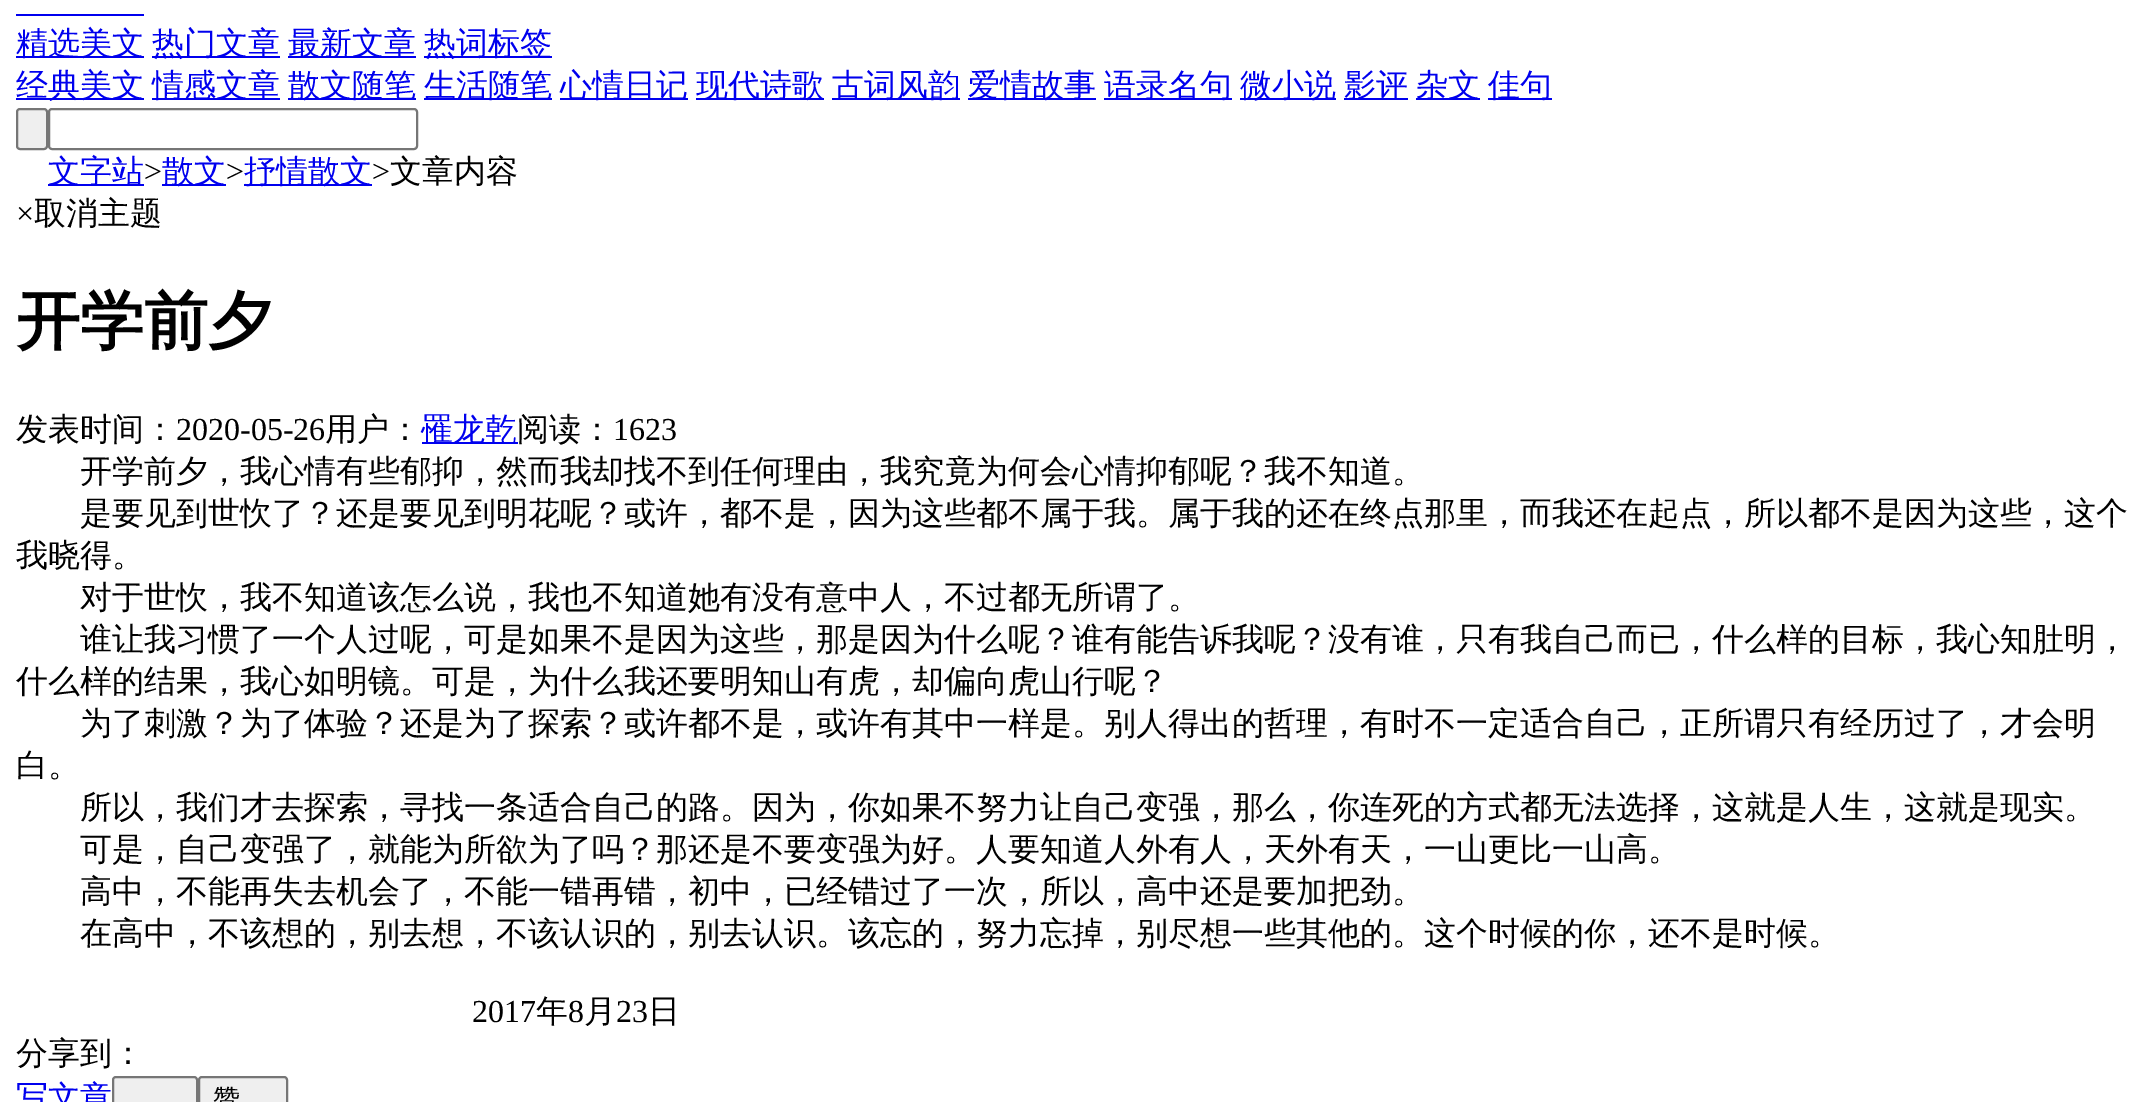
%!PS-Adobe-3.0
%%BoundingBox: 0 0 2154 1102
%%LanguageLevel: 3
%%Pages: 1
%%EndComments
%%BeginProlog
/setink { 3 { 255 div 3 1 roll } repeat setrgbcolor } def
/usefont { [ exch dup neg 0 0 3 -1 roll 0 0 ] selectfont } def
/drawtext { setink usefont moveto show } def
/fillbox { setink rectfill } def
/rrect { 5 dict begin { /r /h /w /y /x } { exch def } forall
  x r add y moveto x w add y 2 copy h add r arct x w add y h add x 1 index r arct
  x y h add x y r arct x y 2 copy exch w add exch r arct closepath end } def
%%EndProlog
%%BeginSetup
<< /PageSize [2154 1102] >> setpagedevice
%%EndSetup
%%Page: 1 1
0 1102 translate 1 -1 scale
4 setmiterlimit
0 0 2154 1102 255 255 255 fillbox
16 14 128 2 0 0 238 fillbox
16 56 128 2 0 0 238 fillbox
(精选美文) 16 54 /WenQuanYiZenHei-Medium 32 0 0 238 drawtext
152 56 128 2 0 0 238 fillbox
(热门文章) 152 54 /WenQuanYiZenHei-Medium 32 0 0 238 drawtext
288 56 128 2 0 0 238 fillbox
(最新文章) 288 54 /WenQuanYiZenHei-Medium 32 0 0 238 drawtext
424 56 128 2 0 0 238 fillbox
(热词标签) 424 54 /WenQuanYiZenHei-Medium 32 0 0 238 drawtext
16 98 128 2 0 0 238 fillbox
(经典美文) 16 96 /WenQuanYiZenHei-Medium 32 0 0 238 drawtext
152 98 128 2 0 0 238 fillbox
(情感文章) 152 96 /WenQuanYiZenHei-Medium 32 0 0 238 drawtext
288 98 128 2 0 0 238 fillbox
(散文随笔) 288 96 /WenQuanYiZenHei-Medium 32 0 0 238 drawtext
424 98 128 2 0 0 238 fillbox
(生活随笔) 424 96 /WenQuanYiZenHei-Medium 32 0 0 238 drawtext
560 98 128 2 0 0 238 fillbox
(心情日记) 560 96 /WenQuanYiZenHei-Medium 32 0 0 238 drawtext
696 98 128 2 0 0 238 fillbox
(现代诗歌) 696 96 /WenQuanYiZenHei-Medium 32 0 0 238 drawtext
832 98 128 2 0 0 238 fillbox
(古词风韵) 832 96 /WenQuanYiZenHei-Medium 32 0 0 238 drawtext
968 98 128 2 0 0 238 fillbox
(爱情故事) 968 96 /WenQuanYiZenHei-Medium 32 0 0 238 drawtext
1104 98 128 2 0 0 238 fillbox
(语录名句) 1104 96 /WenQuanYiZenHei-Medium 32 0 0 238 drawtext
1240 98 96 2 0 0 238 fillbox
(微小说) 1240 96 /WenQuanYiZenHei-Medium 32 0 0 238 drawtext
1344 98 64 2 0 0 238 fillbox
(影评) 1344 96 /WenQuanYiZenHei-Medium 32 0 0 238 drawtext
1416 98 64 2 0 0 238 fillbox
(杂文) 1416 96 /WenQuanYiZenHei-Medium 32 0 0 238 drawtext
1488 98 64 2 0 0 238 fillbox
(佳句) 1488 96 /WenQuanYiZenHei-Medium 32 0 0 238 drawtext
239 239 239 setink
17 109 30 40 3 rrect gsave fill grestore
118 118 118 setink
2 setlinewidth
stroke
49 109 368 40 3 rrect stroke
48 184 96 2 0 0 238 fillbox
(文字站) 48 182 /WenQuanYiZenHei-Medium 32 0 0 238 drawtext
(>) 144 182 /LiberationSerif-Regular 32 0 0 0 drawtext
162 184 64 2 0 0 238 fillbox
(散文) 162 182 /WenQuanYiZenHei-Medium 32 0 0 238 drawtext
(>) 226 182 /LiberationSerif-Regular 32 0 0 0 drawtext
244 184 128 2 0 0 238 fillbox
(抒情散文) 244 182 /WenQuanYiZenHei-Medium 32 0 0 238 drawtext
(>) 372 182 /LiberationSerif-Regular 32 0 0 0 drawtext
(文章内容) 390 182 /WenQuanYiZenHei-Medium 32 0 0 0 drawtext
(×) 16 224 /LiberationSerif-Regular 32 0 0 0 drawtext
(取消主题) 34 224 /WenQuanYiZenHei-Medium 32 0 0 0 drawtext
(开学前夕) 16 343 /WenQuanYiZenHei-Bold 64 0 0 0 drawtext
(发表时间：) 16 440 /WenQuanYiZenHei-Medium 32 0 0 0 drawtext
(2020-05-26) 176 440 /LiberationSerif-Regular 32 0 0 0 drawtext
(用户：) 325 440 /WenQuanYiZenHei-Medium 32 0 0 0 drawtext
422 442 96 2 0 0 238 fillbox
(罹龙乾) 421 440 /WenQuanYiZenHei-Medium 32 0 0 238 drawtext
(阅读：) 517 440 /WenQuanYiZenHei-Medium 32 0 0 0 drawtext
(1623) 613 440 /LiberationSerif-Regular 32 0 0 0 drawtext
(开学前夕，我心情有些郁抑，然而我却找不到任何理由，我究竟为何会心情抑郁呢？我不知道。) 80 482 /WenQuanYiZenHei-Medium 32 0 0 0 drawtext
(是要见到世忺了？还是要见到明花呢？或许，都不是，因为这些都不属于我。属于我的还在终点那里，而我还在起点，所以都不是因为这些，这个) 80 524 /WenQuanYiZenHei-Medium 32 0 0 0 drawtext
(我晓得。) 16 566 /WenQuanYiZenHei-Medium 32 0 0 0 drawtext
(对于世忺，我不知道该怎么说，我也不知道她有没有意中人，不过都无所谓了。) 80 608 /WenQuanYiZenHei-Medium 32 0 0 0 drawtext
(谁让我习惯了一个人过呢，可是如果不是因为这些，那是因为什么呢？谁有能告诉我呢？没有谁，只有我自己而已，什么样的目标，我心知肚明，) 80 650 /WenQuanYiZenHei-Medium 32 0 0 0 drawtext
(什么样的结果，我心如明镜。可是，为什么我还要明知山有虎，却偏向虎山行呢？) 16 692 /WenQuanYiZenHei-Medium 32 0 0 0 drawtext
(为了刺激？为了体验？还是为了探索？或许都不是，或许有其中一样是。别人得出的哲理，有时不一定适合自己，正所谓只有经历过了，才会明) 80 734 /WenQuanYiZenHei-Medium 32 0 0 0 drawtext
(白。) 16 776 /WenQuanYiZenHei-Medium 32 0 0 0 drawtext
(所以，我们才去探索，寻找一条适合自己的路。因为，你如果不努力让自己变强，那么，你连死的方式都无法选择，这就是人生，这就是现实。) 80 818 /WenQuanYiZenHei-Medium 32 0 0 0 drawtext
(可是，自己变强了，就能为所欲为了吗？那还是不要变强为好。人要知道人外有人，天外有天，一山更比一山高。) 80 860 /WenQuanYiZenHei-Medium 32 0 0 0 drawtext
(高中，不能再失去机会了，不能一错再错，初中，已经错过了一次，所以，高中还是要加把劲。) 80 902 /WenQuanYiZenHei-Medium 32 0 0 0 drawtext
(在高中，不该想的，别去想，不该认识的，别去认识。该忘的，努力忘掉，别尽想一些其他的。这个时候的你，还不是时候。) 80 944 /WenQuanYiZenHei-Medium 32 0 0 0 drawtext
(2017) 472 1022 /LiberationSerif-Regular 32 0 0 0 drawtext
(年) 536 1022 /WenQuanYiZenHei-Medium 32 0 0 0 drawtext
(8) 568 1022 /LiberationSerif-Regular 32 0 0 0 drawtext
(月) 584 1022 /WenQuanYiZenHei-Medium 32 0 0 0 drawtext
(23) 616 1022 /LiberationSerif-Regular 32 0 0 0 drawtext
(日) 648 1022 /WenQuanYiZenHei-Medium 32 0 0 0 drawtext
(分享到：) 16 1064 /WenQuanYiZenHei-Medium 32 0 0 0 drawtext
(写文章) 16 1108 /WenQuanYiZenHei-Medium 32 0 0 238 drawtext
239 239 239 setink
113 1077 84 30 3 rrect gsave fill grestore
118 118 118 setink
stroke
239 239 239 setink
199 1077 88 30 3 rrect gsave fill grestore
118 118 118 setink
stroke
(赞) 213 1108 /WenQuanYiZenHei-Medium 27 0 0 0 drawtext
showpage
%%EOF
